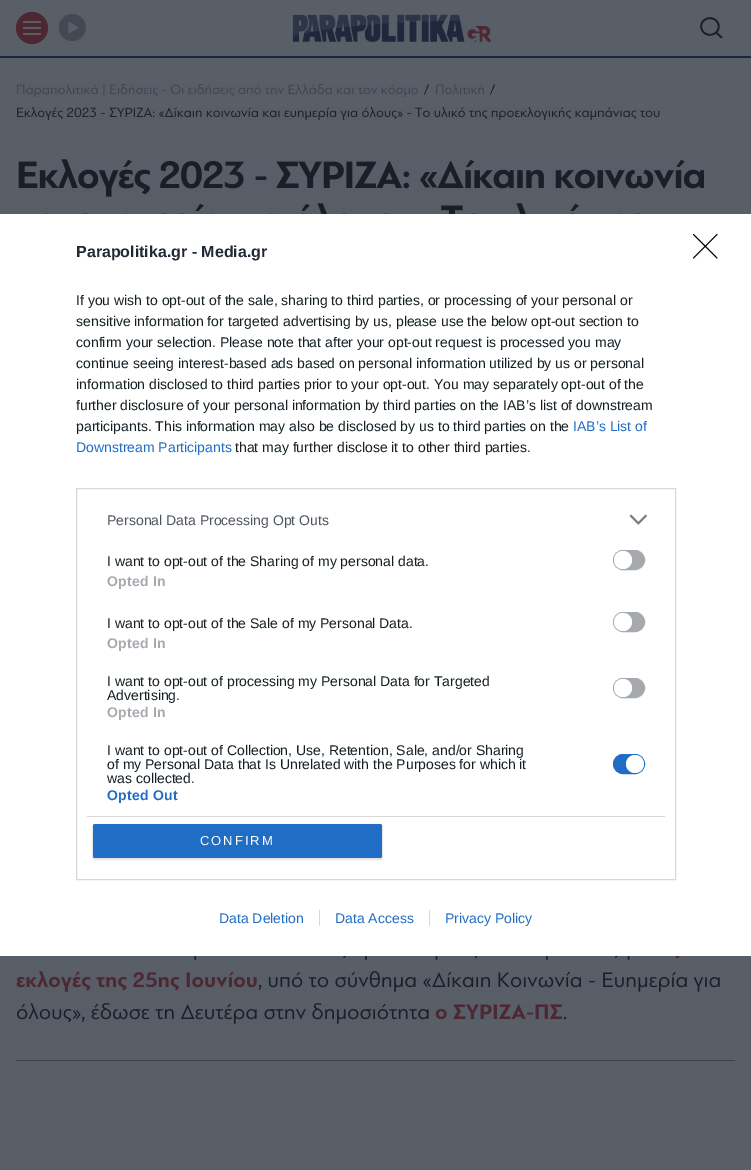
%!PS-Adobe-3.0
%%BoundingBox: 0 0 751 1170
%%LanguageLevel: 3
%%Pages: 1
%%EndComments
%%BeginProlog
/setink { 3 { 255 div 3 1 roll } repeat setrgbcolor } def
/usefont { [ exch dup neg 0 0 3 -1 roll 0 0 ] selectfont } def
/drawtext { setink usefont moveto show } def
/fillbox { setink rectfill } def
/setalpha { dup .setfillconstantalpha .setstrokeconstantalpha } def
/disc { newpath 0 360 arc closepath } def
/rrect { 5 dict begin { /r /h /w /y /x } { exch def } forall
  x r add y moveto x w add y 2 copy h add r arct x w add y h add x 1 index r arct
  x y h add x y r arct x y 2 copy exch w add exch r arct closepath end } def
/softshadow { 12 dict begin { /a /b /q /h /w /y /x } { exch def } forall gsave /was 0 def
  9 -2 -9 { dup b mul 4 div /e exch def 1 sub .425 mul 2.718 exch exp 1 add a .99 .min exch div /now exch def
    1 1 now sub 1 was sub div sub setalpha /was now def
    w h .min e 2 mul add 0 gt { x e sub y e sub w e 2 mul add h e 2 mul add
      q e add b .6 mul add w h .min 2 div e add .min 0 .max rrect fill } if } for grestore end } def
/drawimage { 5 dict begin { /h /w /y /x /name } { exch def } forall
  gsave x y translate w h scale
  w h 8 [w 0 0 h 0 0] name (r) file false 3 colorimage grestore end } def
%%EndProlog
%%BeginSetup
<< /PageSize [751 1170] /PageUsesTransparency true >> setpagedevice
%%EndSetup
%%Page: 1 1
0 .pushpdf14devicefilter
0 1170 translate 1 -1 scale
4 setmiterlimit
0 0 751 1170 89 95 103 fillbox
0 56 751 2 32 39 60 fillbox
77 40 50 setink
32 28 16 disc fill
89 95 103 setink
23 21 18 2 1 rrect fill
23 27 18 2 1 rrect fill
23 33 18 2 1 rrect fill
(assets/img1.rgb) 58 14 28 28 drawimage
(assets/img2.rgb) 292 14 200 28 drawimage
(assets/img3.rgb) 700 17 23 22 drawimage
(assets/img4.rgb) 17 83 401 14 drawimage
25 31 39 setink
429 84.5 moveto 424.5 95 lineto 424 95 lineto 428 84.5 lineto closepath fill
(assets/img5.rgb) 436 84 48 11 drawimage
495 84.5 moveto 490.5 95 lineto 490 95 lineto 494 84.5 lineto closepath fill
(assets/img6.rgb) 17 107 643 13 drawimage
(assets/img7.rgb) 18 159 686 38 drawimage
(assets/img8.rgb) 44 203 597 11 drawimage
(assets/img9.rgb) 194 956 436 4 drawimage
(assets/img10.rgb) 675 956 5 3 drawimage
(assets/img11.rgb) 16 971 241 21 drawimage
(assets/img12.rgb) 258 971 462 21 drawimage
(assets/img13.rgb) 17 1003 412 21 drawimage
(assets/img14.rgb) 435 1004 128 16 drawimage
(assets/img15.rgb) 563 1016 4 4 drawimage
16 1060 719 1 62 68 77 fillbox
0 214 751 742 255 255 255 fillbox
(Parapolitika.gr - Media.gr) 76 257 /LiberationSans-Bold 16 33 41 52 drawtext
(If you wish to opt-out of the sale, sharing to third parties, or processing of your personal or) 76 305 /LiberationSans-Regular 14 20 30 35 drawtext
(sensitive information for targeted advertising by us, please use the below opt-out section to) 76 326 /LiberationSans-Regular 14 20 30 35 drawtext
(confirm your selection. Please note that after your opt-out request is processed you may) 76 347 /LiberationSans-Regular 14 20 30 35 drawtext
(continue seeing interest-based ads based on personal information utilized by us or personal) 76 368 /LiberationSans-Regular 14 20 30 35 drawtext
(information disclosed to third parties prior to your opt-out. You may separately opt-out of the) 76 389 /LiberationSans-Regular 14 20 30 35 drawtext
(further disclosure of your personal information by third parties on the IAB’s list of downstream) 76 410 /LiberationSans-Regular 14 20 30 35 drawtext
(participants. This information may also be disclosed by us to third parties on the) 76 431 /LiberationSans-Regular 14 20 30 35 drawtext
(IAB’s List of) 573 431 /LiberationSans-Regular 14 32 109 197 drawtext
(Downstream Participants) 76 452 /LiberationSans-Regular 14 32 109 197 drawtext
(that may further disclose it to other third parties.) 235 452 /LiberationSans-Regular 14 20 30 35 drawtext
216 216 216 setink
76.5 488.5 599 391 rectstroke
87 816 578 1 216 216 216 fillbox
(Personal Data Processing Opt Outs) 107 525 /LiberationSans-Regular 14 77 84 93 drawtext
(assets/img16.rgb) 629 514 18 11 drawimage
(I want to opt-out of the Sharing of my personal data.) 107 566 /LiberationSans-Regular 14 20 30 35 drawtext
166 169 174 setink
613.5 550.5 31 19 9.5 rrect gsave fill grestore
stroke
255 255 255 setink
623 560 9 disc fill
/LiberationSans-Bold 14 usefont
166 169 174 setink
107 586 moveto 0.25 0 (Opted In) ashow
(I want to opt-out of the Sale of my Personal Data.) 107 628 /LiberationSans-Regular 14 20 30 35 drawtext
166 169 174 setink
613.5 612.5 31 19 9.5 rrect gsave fill grestore
stroke
255 255 255 setink
623 622 9 disc fill
/LiberationSans-Bold 14 usefont
166 169 174 setink
107 648 moveto 0.25 0 (Opted In) ashow
(I want to opt-out of processing my Personal Data for Targeted) 107 686 /LiberationSans-Regular 14 20 30 35 drawtext
(Advertising.) 107 700 /LiberationSans-Regular 14 20 30 35 drawtext
166 169 174 setink
613.5 678.5 31 19 9.5 rrect gsave fill grestore
stroke
255 255 255 setink
623 688 9 disc fill
/LiberationSans-Bold 14 usefont
166 169 174 setink
107 717 moveto 0.25 0 (Opted In) ashow
(I want to opt-out of Collection, Use, Retention, Sale, and/or Sharing) 107 755 /LiberationSans-Regular 14 20 30 35 drawtext
(of my Personal Data that Is Unrelated with the Purposes for which it) 107 769 /LiberationSans-Regular 14 20 30 35 drawtext
(was collected.) 107 783 /LiberationSans-Regular 14 20 30 35 drawtext
32 109 197 setink
613.5 754.5 31 19 9.5 rrect gsave fill grestore
stroke
255 255 255 setink
635 764 9 disc fill
/LiberationSans-Bold 14 usefont
32 109 197 setink
107 800 moveto 0.25 0 (Opted Out) ashow
0 0 0 setink
92 824 291 36 3 0.5 0.1 softshadow
32 109 197 setink
93 824 289 34 2 rrect fill
/LiberationSans-Regular 13 usefont
255 255 255 setink
200 845 moveto 2 0 (CONFIRM) ashow
0 0 0 setink
1 setlinecap
1 setlinejoin
693.5 234.5 moveto 717 258 lineto 717 234.5 moveto 693.5 258 lineto stroke
(Data Deletion) 219 923 /LiberationSans-Regular 14 32 109 197 drawtext
(Data Access) 335 923 /LiberationSans-Regular 14 32 109 197 drawtext
319 910 1 16 216 216 216 fillbox
(Privacy Policy) 445 923 /LiberationSans-Regular 14 32 109 197 drawtext
429 910 1 16 216 216 216 fillbox
.poppdf14devicefilter showpage
%%EOF
